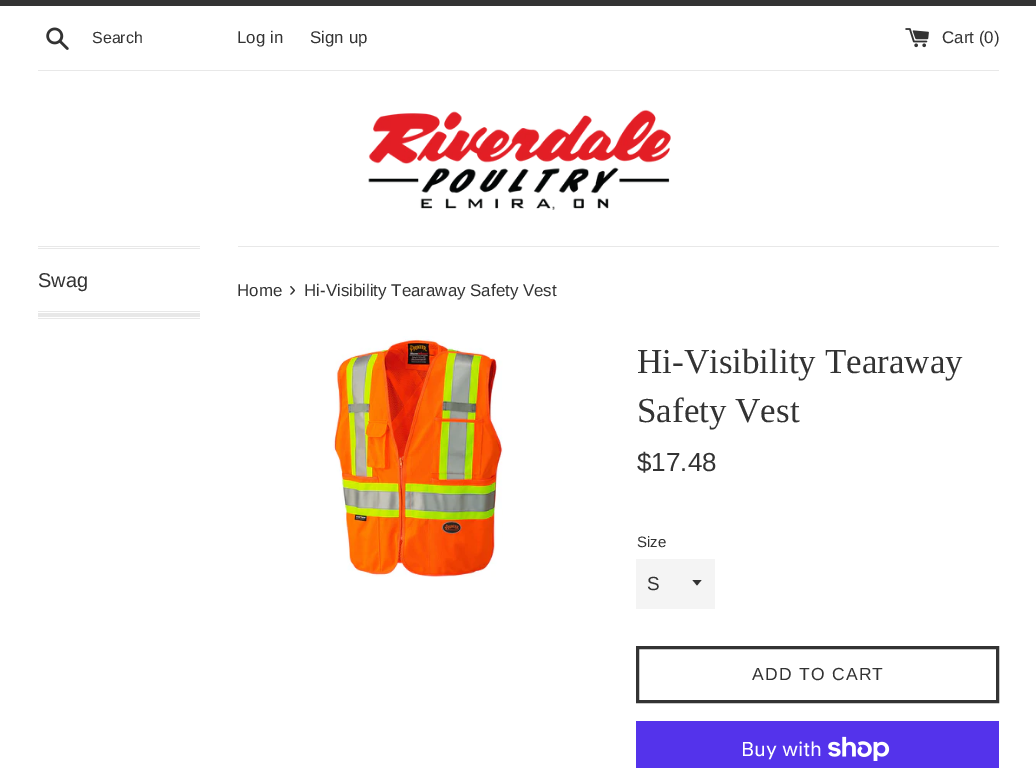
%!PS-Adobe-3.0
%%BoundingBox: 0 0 1036 768
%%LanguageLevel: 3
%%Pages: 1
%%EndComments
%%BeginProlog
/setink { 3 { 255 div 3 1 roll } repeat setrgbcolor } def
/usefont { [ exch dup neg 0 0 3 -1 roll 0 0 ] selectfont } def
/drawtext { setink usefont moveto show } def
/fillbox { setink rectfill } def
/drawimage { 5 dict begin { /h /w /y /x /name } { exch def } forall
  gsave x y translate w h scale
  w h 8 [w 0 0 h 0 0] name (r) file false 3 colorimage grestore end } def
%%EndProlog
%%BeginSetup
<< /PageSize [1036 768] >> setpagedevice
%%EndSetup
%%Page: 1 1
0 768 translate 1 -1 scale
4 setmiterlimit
0 0 1036 768 255 255 255 fillbox
0 0 1036 6 51 51 51 fillbox
(assets/img1.rgb) 46 27 23 23 drawimage
(Search) 92 43 /LiberationSans-Regular 16 51 51 51 drawtext
(Log in) 237 43 /LiberationSans-Regular 16.9 51 51 51 drawtext
(Sign up) 310 43 /LiberationSans-Regular 16.9 51 51 51 drawtext
(assets/img2.rgb) 905 28 24 20 drawimage
(Cart \(0\)) 942 43 /LiberationSans-Regular 16.9 51 51 51 drawtext
38 70 961 1 232 232 232 fillbox
(assets/img3.rgb) 368 109 303 101 drawimage
38 246 162 1 232 232 232 fillbox
38 248 162 1 232 232 232 fillbox
38 311 162 1 232 232 232 fillbox
(Swag) 38 287 /LiberationSans-Regular 20 51 51 51 drawtext
38 313 162 4 232 232 232 fillbox
38 318 162 1 232 232 232 fillbox
238 246 761 1 232 232 232 fillbox
(Home) 237 296 /LiberationSans-Regular 16.9 51 51 51 drawtext
(›) 289 296 /LiberationSans-Regular 21 51 51 51 drawtext
(Hi-Visibility Tearaway Safety Vest) 304 296 /LiberationSans-Regular 16.9 51 51 51 drawtext
(assets/img4.rgb) 330 336 173 241 drawimage
(Hi-Visibility Tearaway) 637 373 /LiberationSerif-Regular 35 51 51 51 drawtext
(Safety Vest) 637 422 /LiberationSerif-Regular 35 51 51 51 drawtext
($17.48) 637 471 /LiberationSans-Regular 26 51 51 51 drawtext
(Size) 637 547 /LiberationSans-Regular 15 51 51 51 drawtext
636 559 79 50 244 244 244 fillbox
51 51 51 setink
692.5 580 moveto 697 585.5 lineto 701.5 580 lineto closepath fill
(S) 647 590 /LiberationSans-Regular 19 51 51 51 drawtext
3 setlinewidth
637.5 647.5 360 54 rectstroke
/LiberationSans-Regular 17.5 usefont
752 680 moveto 1.25 0 (ADD TO CART) ashow
636 721 363 47 84 51 235 fillbox
(Buy with) 741 756 /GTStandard-Regular 20 255 255 255 drawtext
(assets/img5.rgb) 828 736 62 25 drawimage
showpage
%%EOF
